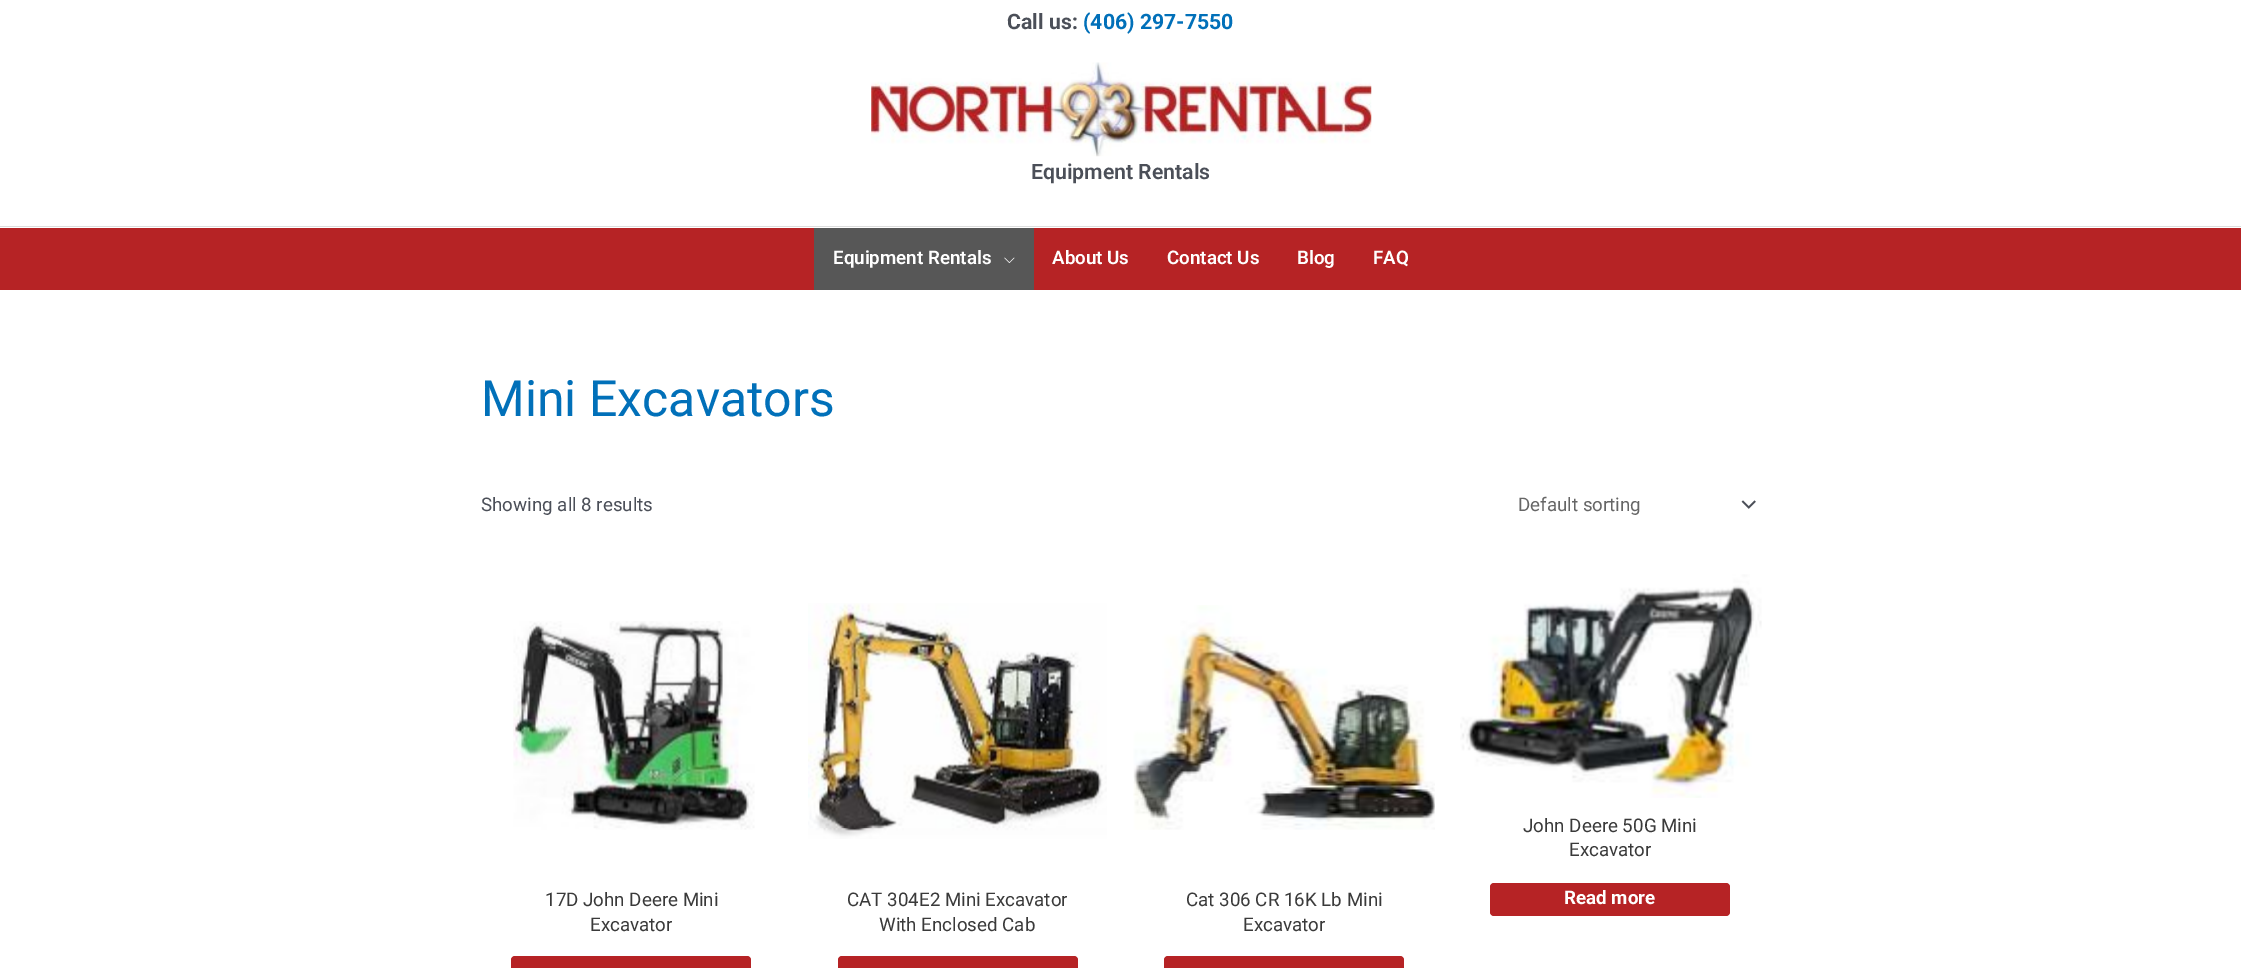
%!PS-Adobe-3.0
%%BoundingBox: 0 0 2241 968
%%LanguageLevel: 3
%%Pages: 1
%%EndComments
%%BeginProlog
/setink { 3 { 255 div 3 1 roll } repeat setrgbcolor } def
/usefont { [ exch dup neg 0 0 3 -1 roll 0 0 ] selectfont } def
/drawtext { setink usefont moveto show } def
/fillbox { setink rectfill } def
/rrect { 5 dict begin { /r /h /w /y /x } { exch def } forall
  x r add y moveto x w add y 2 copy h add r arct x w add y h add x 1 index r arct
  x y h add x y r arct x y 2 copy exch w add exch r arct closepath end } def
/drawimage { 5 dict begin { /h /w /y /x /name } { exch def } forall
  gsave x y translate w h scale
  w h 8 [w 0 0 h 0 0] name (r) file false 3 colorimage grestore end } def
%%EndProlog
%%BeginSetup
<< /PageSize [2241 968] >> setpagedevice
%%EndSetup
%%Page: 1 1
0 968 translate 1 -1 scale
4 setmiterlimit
0 0 2241 968 255 255 255 fillbox
(Call us:) 1007 29 /Roboto-Bold 21.25 75 79 88 drawtext
(\(406\) 297-7550) 1083 29 /Roboto-Bold 21.25 1 112 185 drawtext
0 226 2241 1 221 221 221 fillbox
(assets/img1.rgb) 871 62 501 95 drawimage
(Equipment Rentals) 1031 179 /Roboto-SemiBold 21.25 75 79 88 drawtext
0 228 2241 62 182 35 37 fillbox
814 228 220 62 87 87 87 fillbox
(Equipment Rentals) 833 264 /Roboto-SemiBold 18.75 255 255 255 drawtext
(assets/img2.rgb) 1004 257 11 6 drawimage
(About Us) 1052 264 /Roboto-SemiBold 18.75 255 255 255 drawtext
(Contact Us) 1167 264 /Roboto-SemiBold 18.75 255 255 255 drawtext
(Blog) 1297 264 /Roboto-SemiBold 18.75 255 255 255 drawtext
(FAQ) 1373 264 /Roboto-SemiBold 18.75 255 255 255 drawtext
(Mini Excavators) 481 416 /Roboto-Regular 50 1 112 185 drawtext
(Showing all 8 results) 481 511 /Roboto-Regular 18.75 75 79 88 drawtext
(assets/img3.rgb) 1741 500 15 9 drawimage
(Default sorting) 1518 511 /Roboto-Regular 18.75 102 102 102 drawtext
(assets/img4.rgb) 1460 574 302 224 drawimage
(John Deere 50G Mini) 1523 832 /Roboto-Regular 18.75 58 58 58 drawtext
(Excavator) 1569 856 /Roboto-Regular 18.75 58 58 58 drawtext
182 35 37 setink
1490 883 240 33 4 rrect fill
(Read more) 1564 904 /Roboto-Bold 18.75 255 255 255 drawtext
(assets/img5.rgb) 513 621 242 209 drawimage
(17D John Deere Mini) 545 906 /Roboto-Regular 18.75 58 58 58 drawtext
(Excavator) 590 931 /Roboto-Regular 18.75 58 58 58 drawtext
182 35 37 setink
511 956 240 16 4 rrect fill
(assets/img6.rgb) 808 603 299 236 drawimage
(CAT 304E2 Mini Excavator) 847 906 /Roboto-Regular 18.75 58 58 58 drawtext
(With Enclosed Cab) 879 931 /Roboto-Regular 18.75 58 58 58 drawtext
182 35 37 setink
838 956 240 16 4 rrect fill
(assets/img7.rgb) 1133 605 302 225 drawimage
(Cat 306 CR 16K Lb Mini) 1186 906 /Roboto-Regular 18.75 58 58 58 drawtext
(Excavator) 1243 931 /Roboto-Regular 18.75 58 58 58 drawtext
182 35 37 setink
1164 956 240 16 4 rrect fill
showpage
%%EOF
